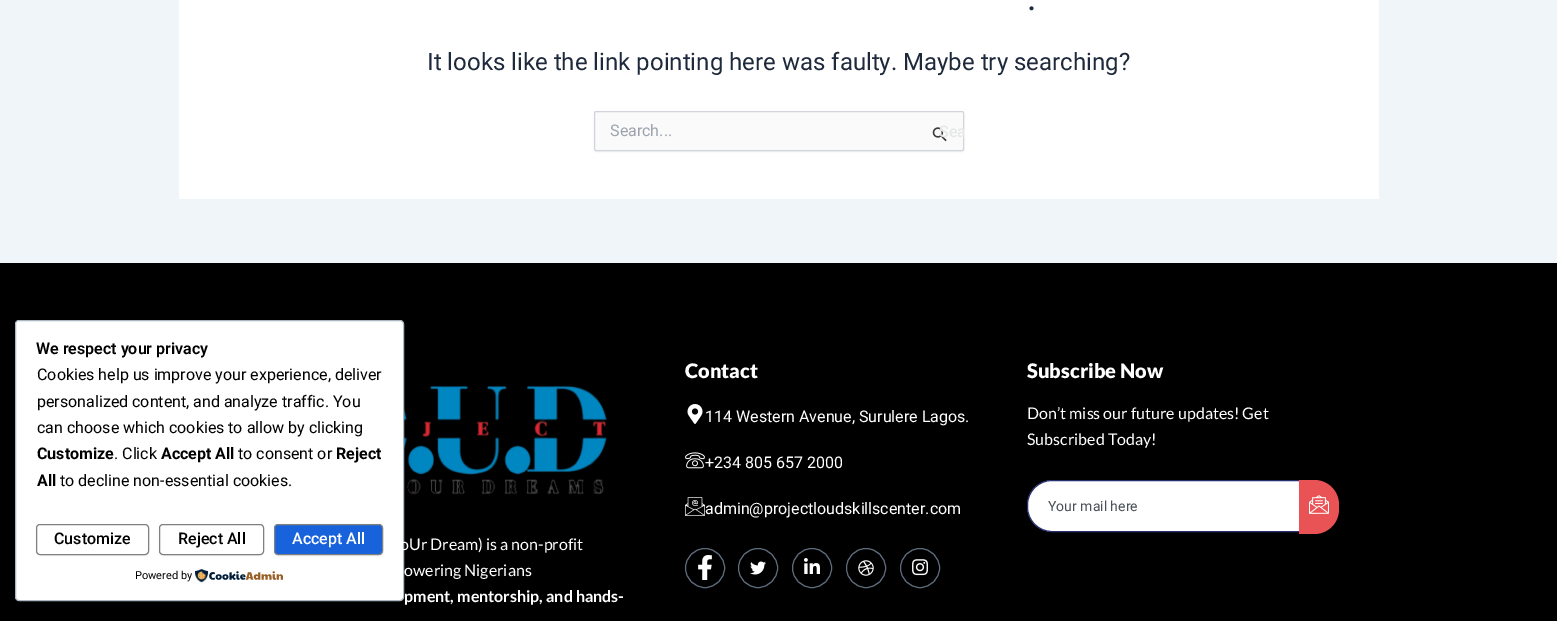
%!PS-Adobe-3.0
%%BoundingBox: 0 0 1557 621
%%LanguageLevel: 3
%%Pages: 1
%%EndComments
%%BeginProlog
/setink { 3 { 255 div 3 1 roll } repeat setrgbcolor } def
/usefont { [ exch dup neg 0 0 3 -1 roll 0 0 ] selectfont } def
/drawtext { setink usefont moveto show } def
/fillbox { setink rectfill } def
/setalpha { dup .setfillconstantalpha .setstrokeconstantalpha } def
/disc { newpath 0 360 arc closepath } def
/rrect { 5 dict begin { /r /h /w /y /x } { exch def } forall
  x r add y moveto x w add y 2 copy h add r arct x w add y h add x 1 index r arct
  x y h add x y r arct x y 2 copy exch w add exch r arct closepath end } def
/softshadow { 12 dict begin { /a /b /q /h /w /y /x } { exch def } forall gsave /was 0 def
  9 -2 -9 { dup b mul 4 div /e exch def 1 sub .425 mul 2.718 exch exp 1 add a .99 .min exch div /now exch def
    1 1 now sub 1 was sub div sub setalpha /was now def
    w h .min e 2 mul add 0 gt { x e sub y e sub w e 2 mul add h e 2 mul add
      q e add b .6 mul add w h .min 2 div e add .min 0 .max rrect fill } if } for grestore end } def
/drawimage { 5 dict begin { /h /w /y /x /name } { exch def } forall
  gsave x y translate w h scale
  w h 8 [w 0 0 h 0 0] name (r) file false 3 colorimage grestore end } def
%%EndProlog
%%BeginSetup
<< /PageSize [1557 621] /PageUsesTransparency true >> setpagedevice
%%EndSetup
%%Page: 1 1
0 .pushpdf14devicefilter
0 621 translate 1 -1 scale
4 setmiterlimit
0 0 1557 621 240 245 250 fillbox
0 263 1557 358 0 0 0 fillbox
(assets/img12.rgb) 404 385 203 110 drawimage
16 323 389 281 4 5 0.2 softshadow
255 255 255 setink
15.5 320.5 388 280 3.5 rrect gsave fill grestore
171 184 195 setink
stroke
(We respect your privacy) 36 354 /Roboto-SemiBold 16 0 0 0 drawtext
(Cookies help us improve your experience, deliver) 37 380 /Roboto-Regular 16 0 0 0 drawtext
(personalized content, and analyze traffic. You) 37 407 /Roboto-Regular 16 0 0 0 drawtext
(can choose which cookies to allow by clicking) 37 433 /Roboto-Regular 16 0 0 0 drawtext
(Customize) 37 459 /Roboto-Bold 16 0 0 0 drawtext
(. Click) 114 459 /Roboto-Regular 16 0 0 0 drawtext
(Accept All) 161 459 /Roboto-Bold 16 0 0 0 drawtext
(to consent or) 238 459 /Roboto-Regular 16 0 0 0 drawtext
(Reject) 336 459 /Roboto-Bold 16 0 0 0 drawtext
(All) 37 486 /Roboto-Bold 16 0 0 0 drawtext
(to decline non-essential cookies.) 60 486 /Roboto-Regular 16 0 0 0 drawtext
36 525 113 31 4 1 0.05 softshadow
255 255 255 setink
36.5 524.5 112 30 3.5 rrect gsave fill grestore
128 128 128 setink
stroke
(Customize) 54 544 /Roboto-Medium 16 0 0 0 drawtext
159 525 105 31 4 1 0.05 softshadow
255 255 255 setink
159.5 524.5 104 30 3.5 rrect gsave fill grestore
128 128 128 setink
stroke
(Reject All) 178 544 /Roboto-Medium 16 0 0 0 drawtext
274 525 109 31 4 1 0.05 softshadow
24 99 220 setink
274.5 524.5 108 30 3.5 rrect gsave fill grestore
128 128 128 setink
stroke
(Accept All) 292 544 /Roboto-Medium 16 255 255 255 drawtext
(Powered by) 135 579 /Roboto-Regular 11 0 0 0 drawtext
(assets/img1.rgb) 195 569 88 14 drawimage
179 0 1200 199 255 255 255 fillbox
(.) 1027 10 /Roboto-Regular 36 30 41 59 drawtext
(It looks like the link pointing here was faulty. Maybe try searching?) 427 70 /Roboto-Regular 24 30 41 59 drawtext
0 0 0 setink
594 112 370 40 2 1 0.05 softshadow
250 250 250 setink
594.5 111.5 369 39 1.5 rrect gsave fill grestore
209 213 219 setink
stroke
(Search...) 610 136 /Roboto-Regular 16 156 163 175 drawtext
(assets/img2.rgb) 932 127 15 15 drawimage
gsave
919 111 45 42 2 rrect clip newpath
(Sea) 939 137 /Roboto-Medium 16 230 231 231 drawtext
grestore
(Contact) 685 378 /Lato-Black 20 255 255 255 drawtext
(assets/img3.rgb) 687 404 16 20 drawimage
(114 Western Avenue, Surulere Lagos.) 705 422 /Roboto-Regular 16 255 255 255 drawtext
(assets/img4.rgb) 685 452 20 17 drawimage
(+234 805 657 2000) 705 468 /Roboto-Regular 16 255 255 255 drawtext
(assets/img5.rgb) 685 497 20 19 drawimage
(admin@projectloudskillscenter.com) 705 514 /Roboto-Regular 16 255 255 255 drawtext
94 109 126 setink
705 568 19.5 disc stroke
(assets/img6.rgb) 698 555 14 25 drawimage
758 568 19.5 disc stroke
(assets/img7.rgb) 750 561 16 14 drawimage
812 568 19.5 disc stroke
(assets/img8.rgb) 804 558 16 16 drawimage
866 568 19.5 disc stroke
(assets/img9.rgb) 858 560 16 16 drawimage
920 568 19.5 disc stroke
(assets/img10.rgb) 912 559 16 17 drawimage
(Subscribe Now) 1027 378 /Lato-Black 20 255 255 255 drawtext
(Don’t miss our future updates! Get) 1027 419 /Lato-Regular 16 255 255 255 drawtext
(Subscribed Today!) 1027 445 /Lato-Regular 16 255 255 255 drawtext
1052 480.5 moveto 1300.5 480.5 lineto 1300.5 531.5 lineto 1052 531.5 lineto 1038.5 531.5 1027.5 520.5 1027.5 507 curveto 1027.5 505 lineto 1027.5 491.5 1038.5 480.5 1052 480.5 curveto closepath gsave fill grestore
39 49 113 setink
stroke
(Your mail here) 1048 511 /Roboto-Regular 14 73 80 87 drawtext
234 83 86 setink
1299 480 moveto 1314 480 lineto 1328 480 1339 491 1339 505 curveto 1339 509 lineto 1339 523 1328 534 1314 534 curveto 1299 534 lineto closepath fill
(assets/img11.rgb) 1309 495 20 19 drawimage
(oUr Dream\) is a non-profit) 400 550 /Lato-Regular 16 255 255 255 drawtext
(owering Nigerians) 404 576 /Lato-Regular 16 255 255 255 drawtext
(pment, mentorship, and hands-) 404 602 /Lato-Bold 16 255 255 255 drawtext
.poppdf14devicefilter showpage
%%EOF
